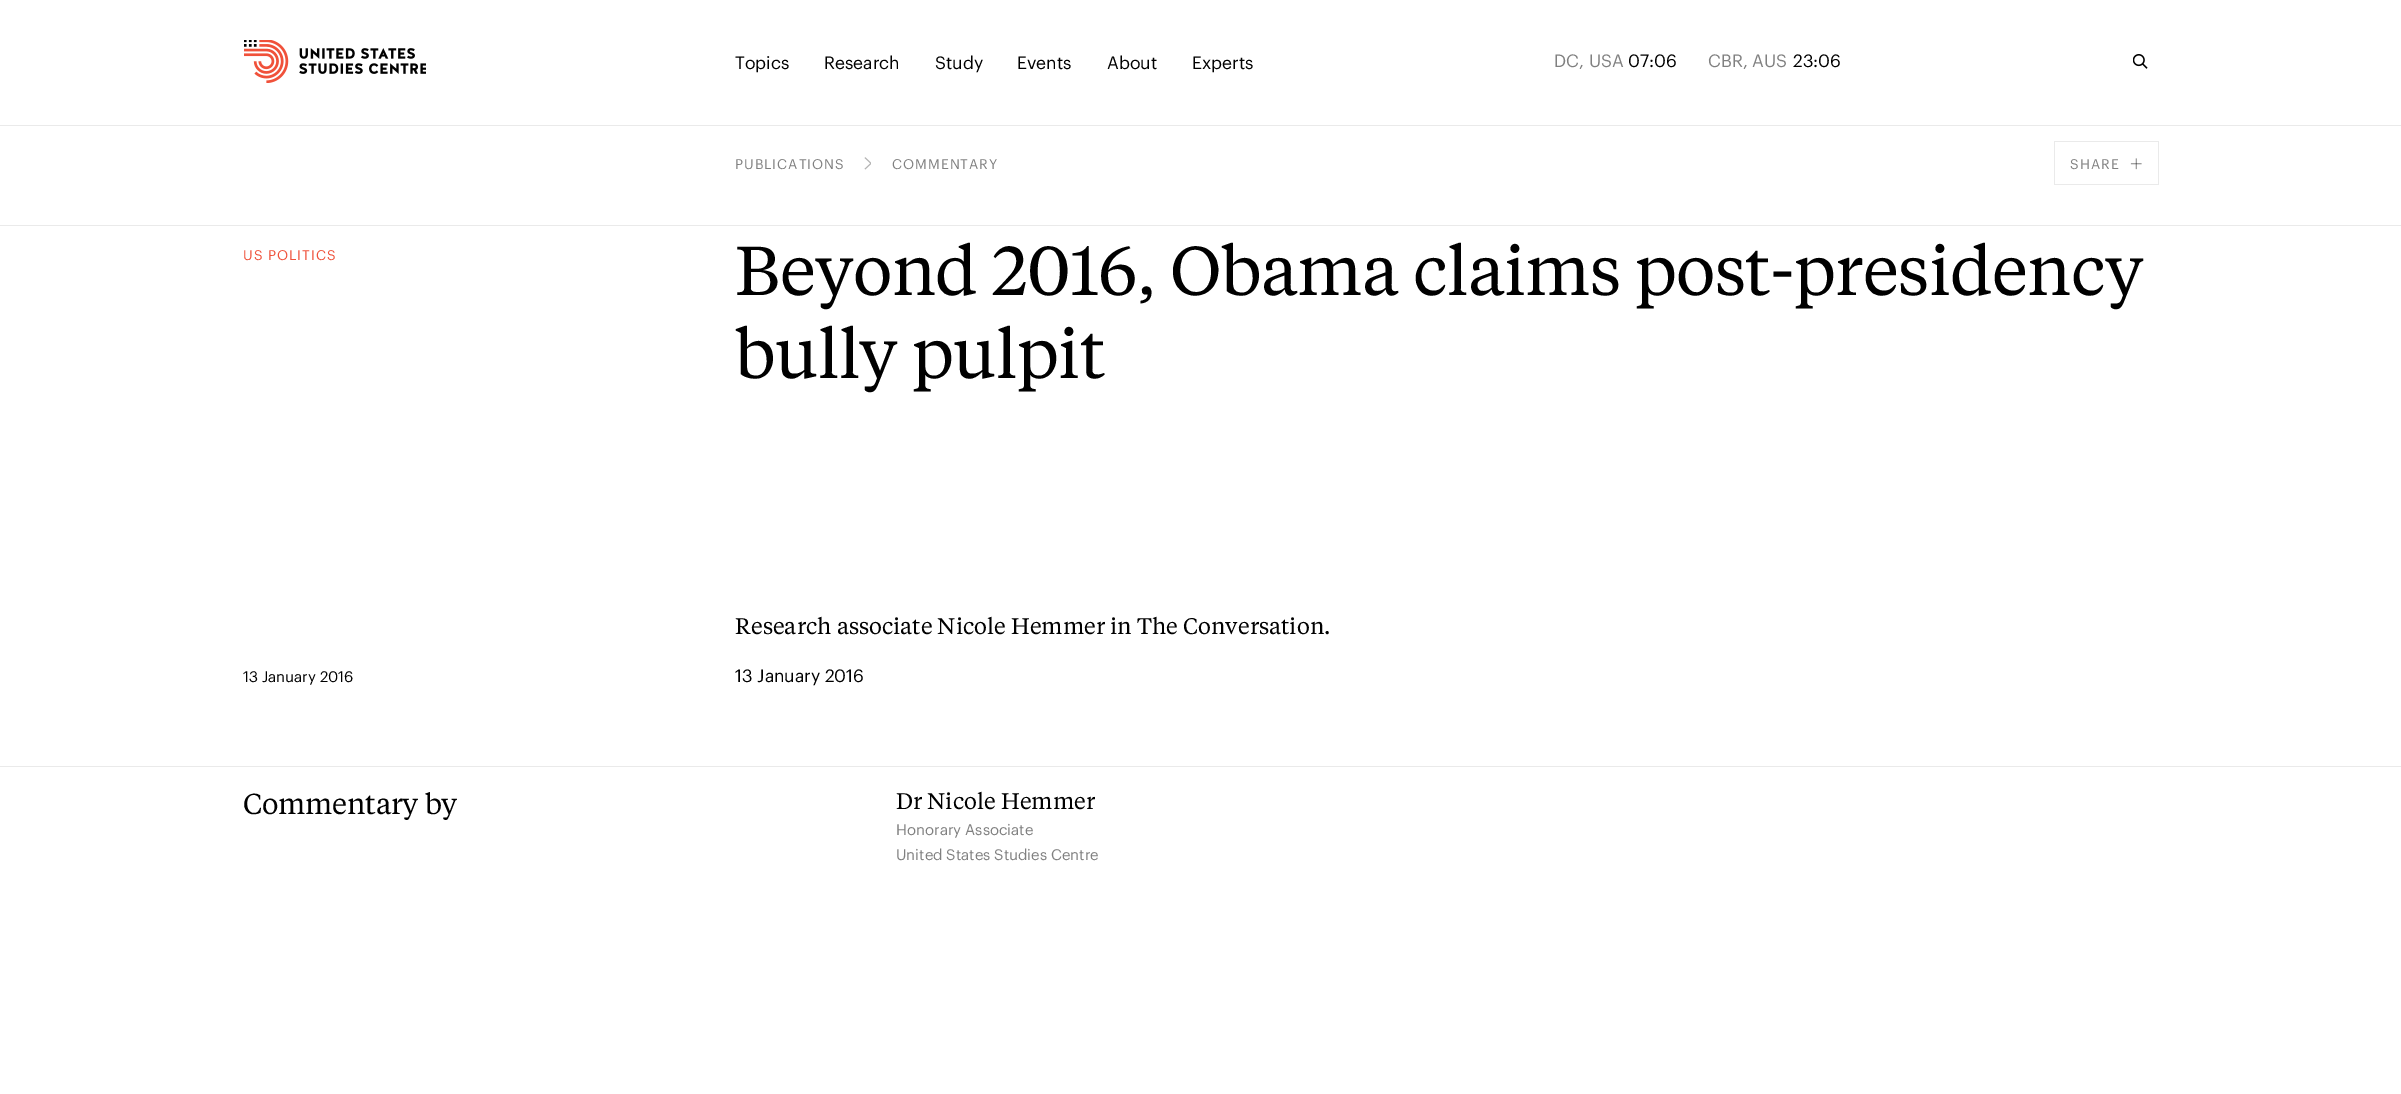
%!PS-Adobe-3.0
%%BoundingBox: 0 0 2401 1094
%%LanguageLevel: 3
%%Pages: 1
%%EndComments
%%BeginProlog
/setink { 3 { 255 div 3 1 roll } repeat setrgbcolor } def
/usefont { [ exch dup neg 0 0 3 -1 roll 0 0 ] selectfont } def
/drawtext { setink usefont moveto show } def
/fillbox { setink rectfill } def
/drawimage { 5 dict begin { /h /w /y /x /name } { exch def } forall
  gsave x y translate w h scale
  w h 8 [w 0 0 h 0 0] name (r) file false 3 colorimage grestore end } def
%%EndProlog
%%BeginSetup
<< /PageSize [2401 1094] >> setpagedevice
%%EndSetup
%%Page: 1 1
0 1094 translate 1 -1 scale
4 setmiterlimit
0 0 2401 1094 255 255 255 fillbox
(assets/img1.rgb) 244 40 182 43 drawimage
(Topics) 735 69 /Graphik-Regular 17.5 0 0 0 drawtext
(Research) 824 69 /Graphik-Regular 17.5 0 0 0 drawtext
(Study) 935 69 /Graphik-Regular 17.5 0 0 0 drawtext
(Events) 1017 69 /Graphik-Regular 17.5 0 0 0 drawtext
(About) 1107 69 /Graphik-Regular 17.5 0 0 0 drawtext
(Experts) 1192 69 /Graphik-Regular 17.5 0 0 0 drawtext
(DC, USA) 1554 67 /Graphik-Regular 17.5 128 128 128 drawtext
(07:06) 1628 67 /Graphik-Regular 17.5 0 0 0 drawtext
(CBR, AUS) 1708 67 /Graphik-Regular 17.5 128 128 128 drawtext
(23:06) 1793 67 /Graphik-Regular 17.5 0 0 0 drawtext
(assets/img2.rgb) 2133 54 15 15 drawimage
0 125 2401 1 234 234 234 fillbox
0 225 2401 1 234 234 234 fillbox
/Graphik-Regular 13.75 usefont
128 128 128 setink
735 169 moveto 1 0 (PUBLICATIONS) ashow
(assets/img3.rgb) 864 157 7 13 drawimage
892 169 moveto 1 0 (COMMENTARY) ashow
2158 141 1 44 234 234 234 fillbox
2054 141 104 1 234 234 234 fillbox
2054 184 104 1 234 234 234 fillbox
2054 141 1 44 234 234 234 fillbox
128 128 128 setink
2070 169 moveto 1 0 (SHARE) ashow
(assets/img4.rgb) 2130 158 12 12 drawimage
240 81 58 setink
243 260 moveto 1 0 (US POLITICS) ashow
/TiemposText-Regular 68.8 usefont
0 0 0 setink
735 295 moveto -0.7 0 (Beyond 2016, Obama claims post-presidency) ashow
735 378 moveto -0.7 0 (bully pulpit) ashow
(13 January 2016) 243 682 /Graphik-Regular 15 0 0 0 drawtext
(Research associate Nicole Hemmer in The Conversation.) 735 634 /TiemposText-Regular 22.5 0 0 0 drawtext
(13 January 2016) 735 682 /Graphik-Regular 17.5 0 0 0 drawtext
0 766 2401 1 234 234 234 fillbox
/TiemposText-Regular 28.75 usefont
0 0 0 setink
243 814 moveto -0.25 0 (Commentary by) ashow
(Dr Nicole Hemmer) 896 809 /TiemposText-Regular 22.5 0 0 0 drawtext
(Honorary Associate) 896 835 /Graphik-Regular 15 128 128 128 drawtext
(United States Studies Centre) 896 860 /Graphik-Regular 15 128 128 128 drawtext
showpage
%%EOF
